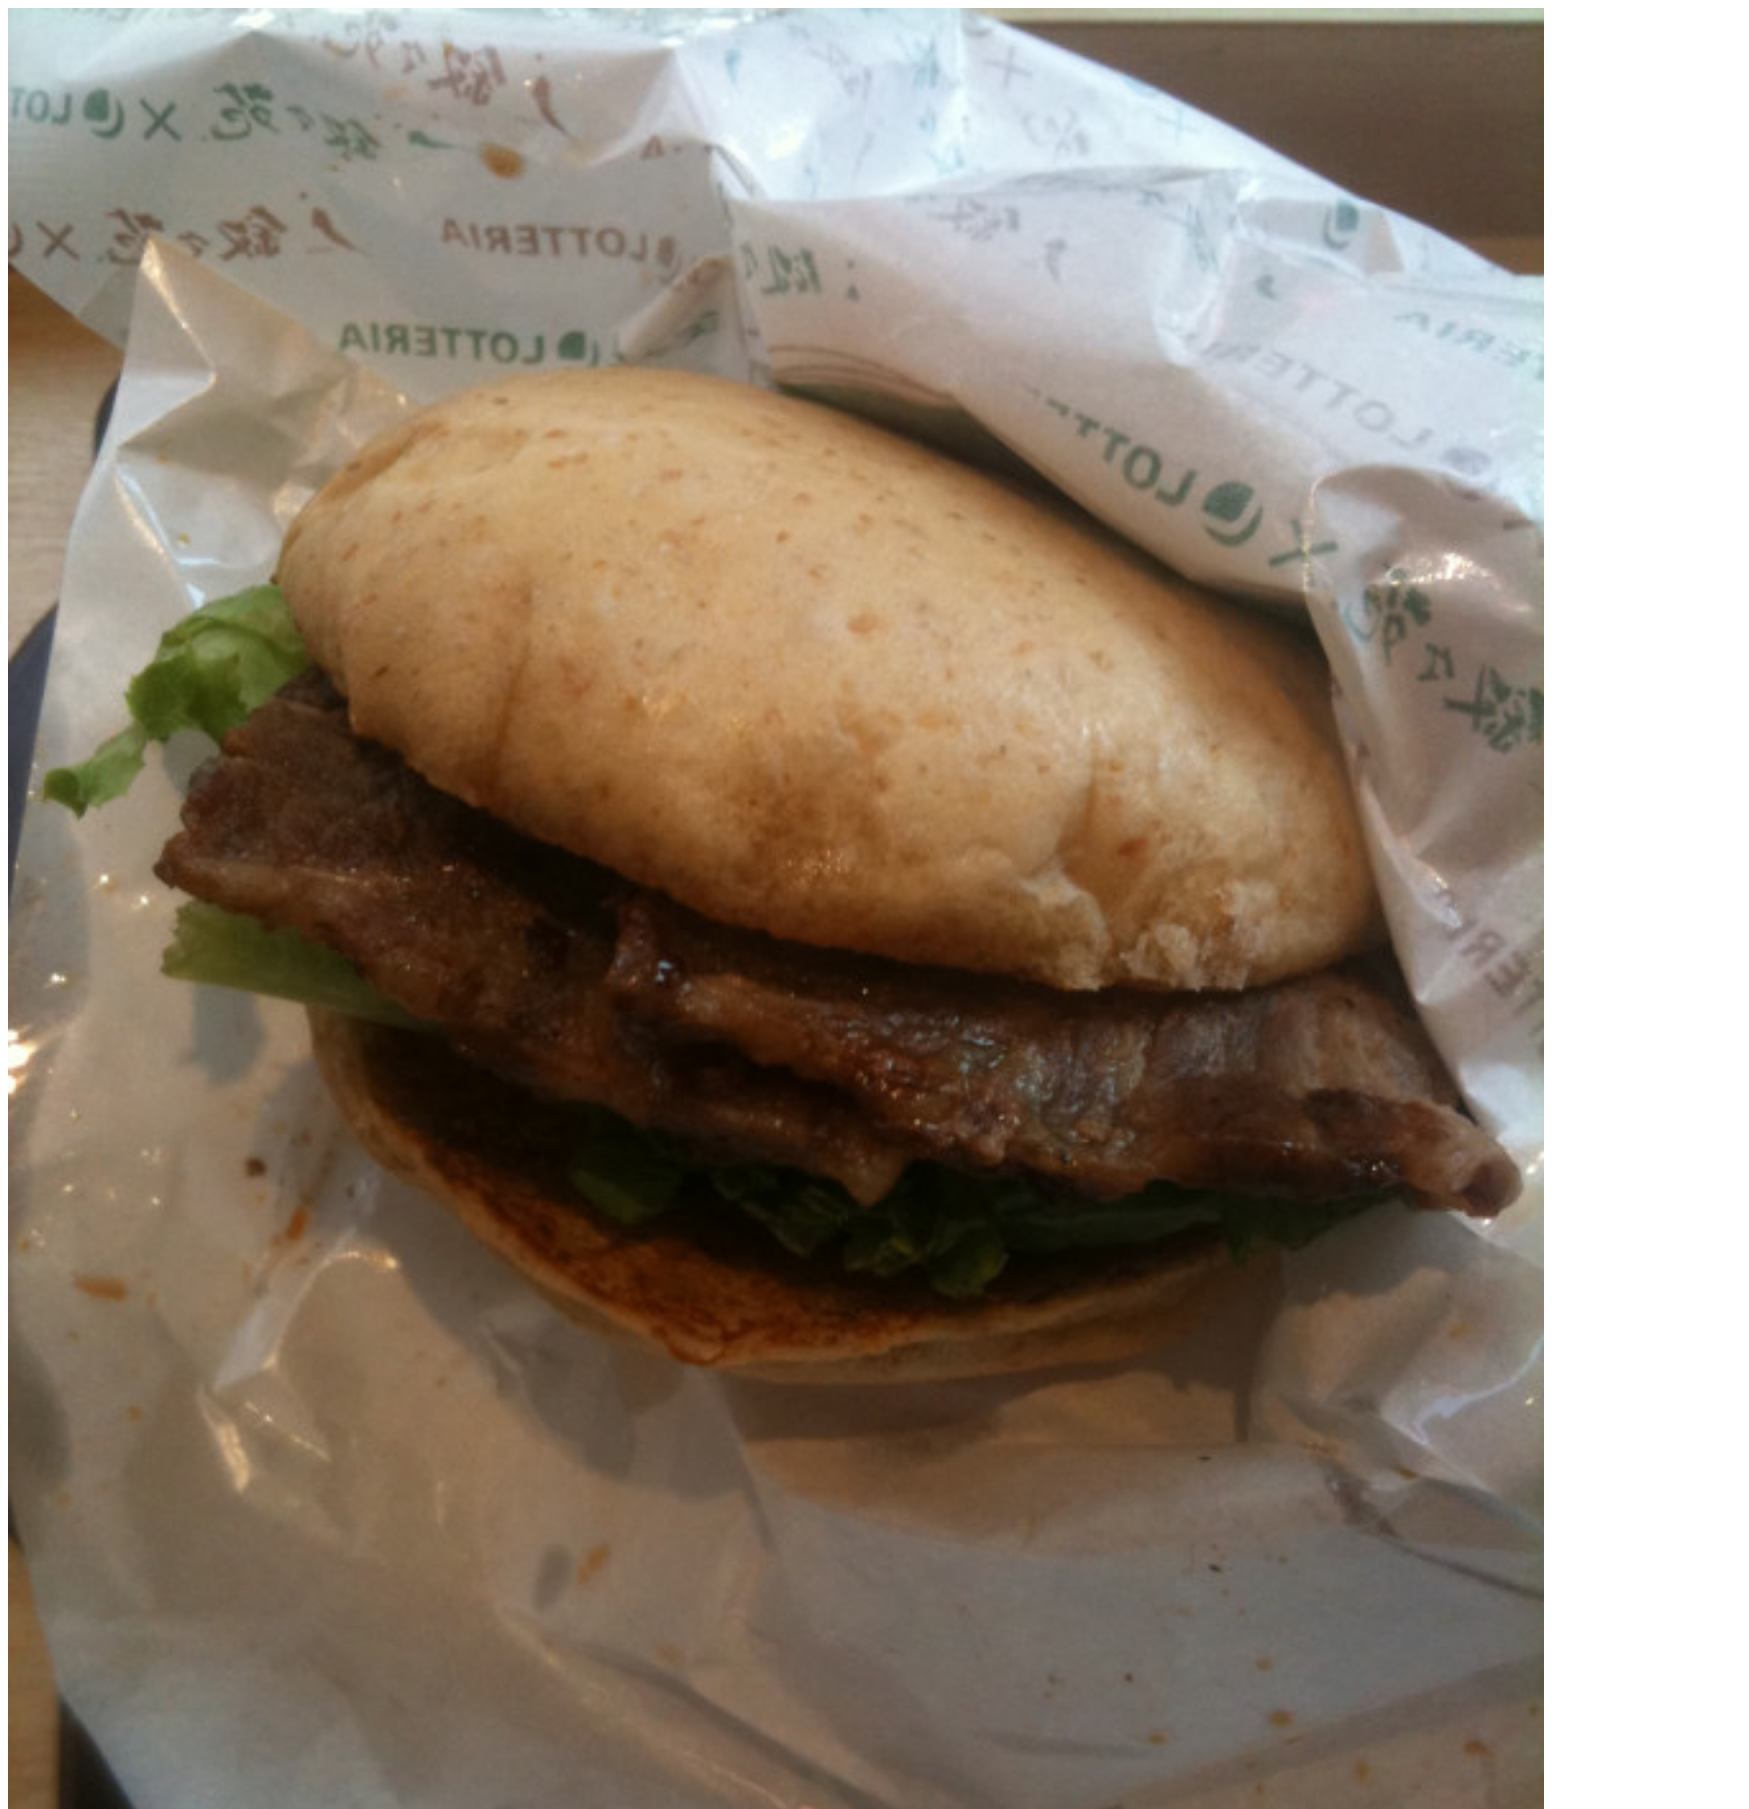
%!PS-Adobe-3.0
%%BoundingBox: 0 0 1749 1809
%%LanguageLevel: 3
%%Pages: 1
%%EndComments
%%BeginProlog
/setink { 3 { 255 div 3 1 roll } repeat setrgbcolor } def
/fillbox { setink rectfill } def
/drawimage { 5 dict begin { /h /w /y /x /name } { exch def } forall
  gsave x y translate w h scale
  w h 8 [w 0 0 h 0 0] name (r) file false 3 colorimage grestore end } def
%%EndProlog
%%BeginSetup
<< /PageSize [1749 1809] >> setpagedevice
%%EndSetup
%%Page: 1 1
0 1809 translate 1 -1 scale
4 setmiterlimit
0 0 1749 1809 255 255 255 fillbox
(assets/img1.rgb) 8 8 1536 1801 drawimage
showpage
%%EOF
